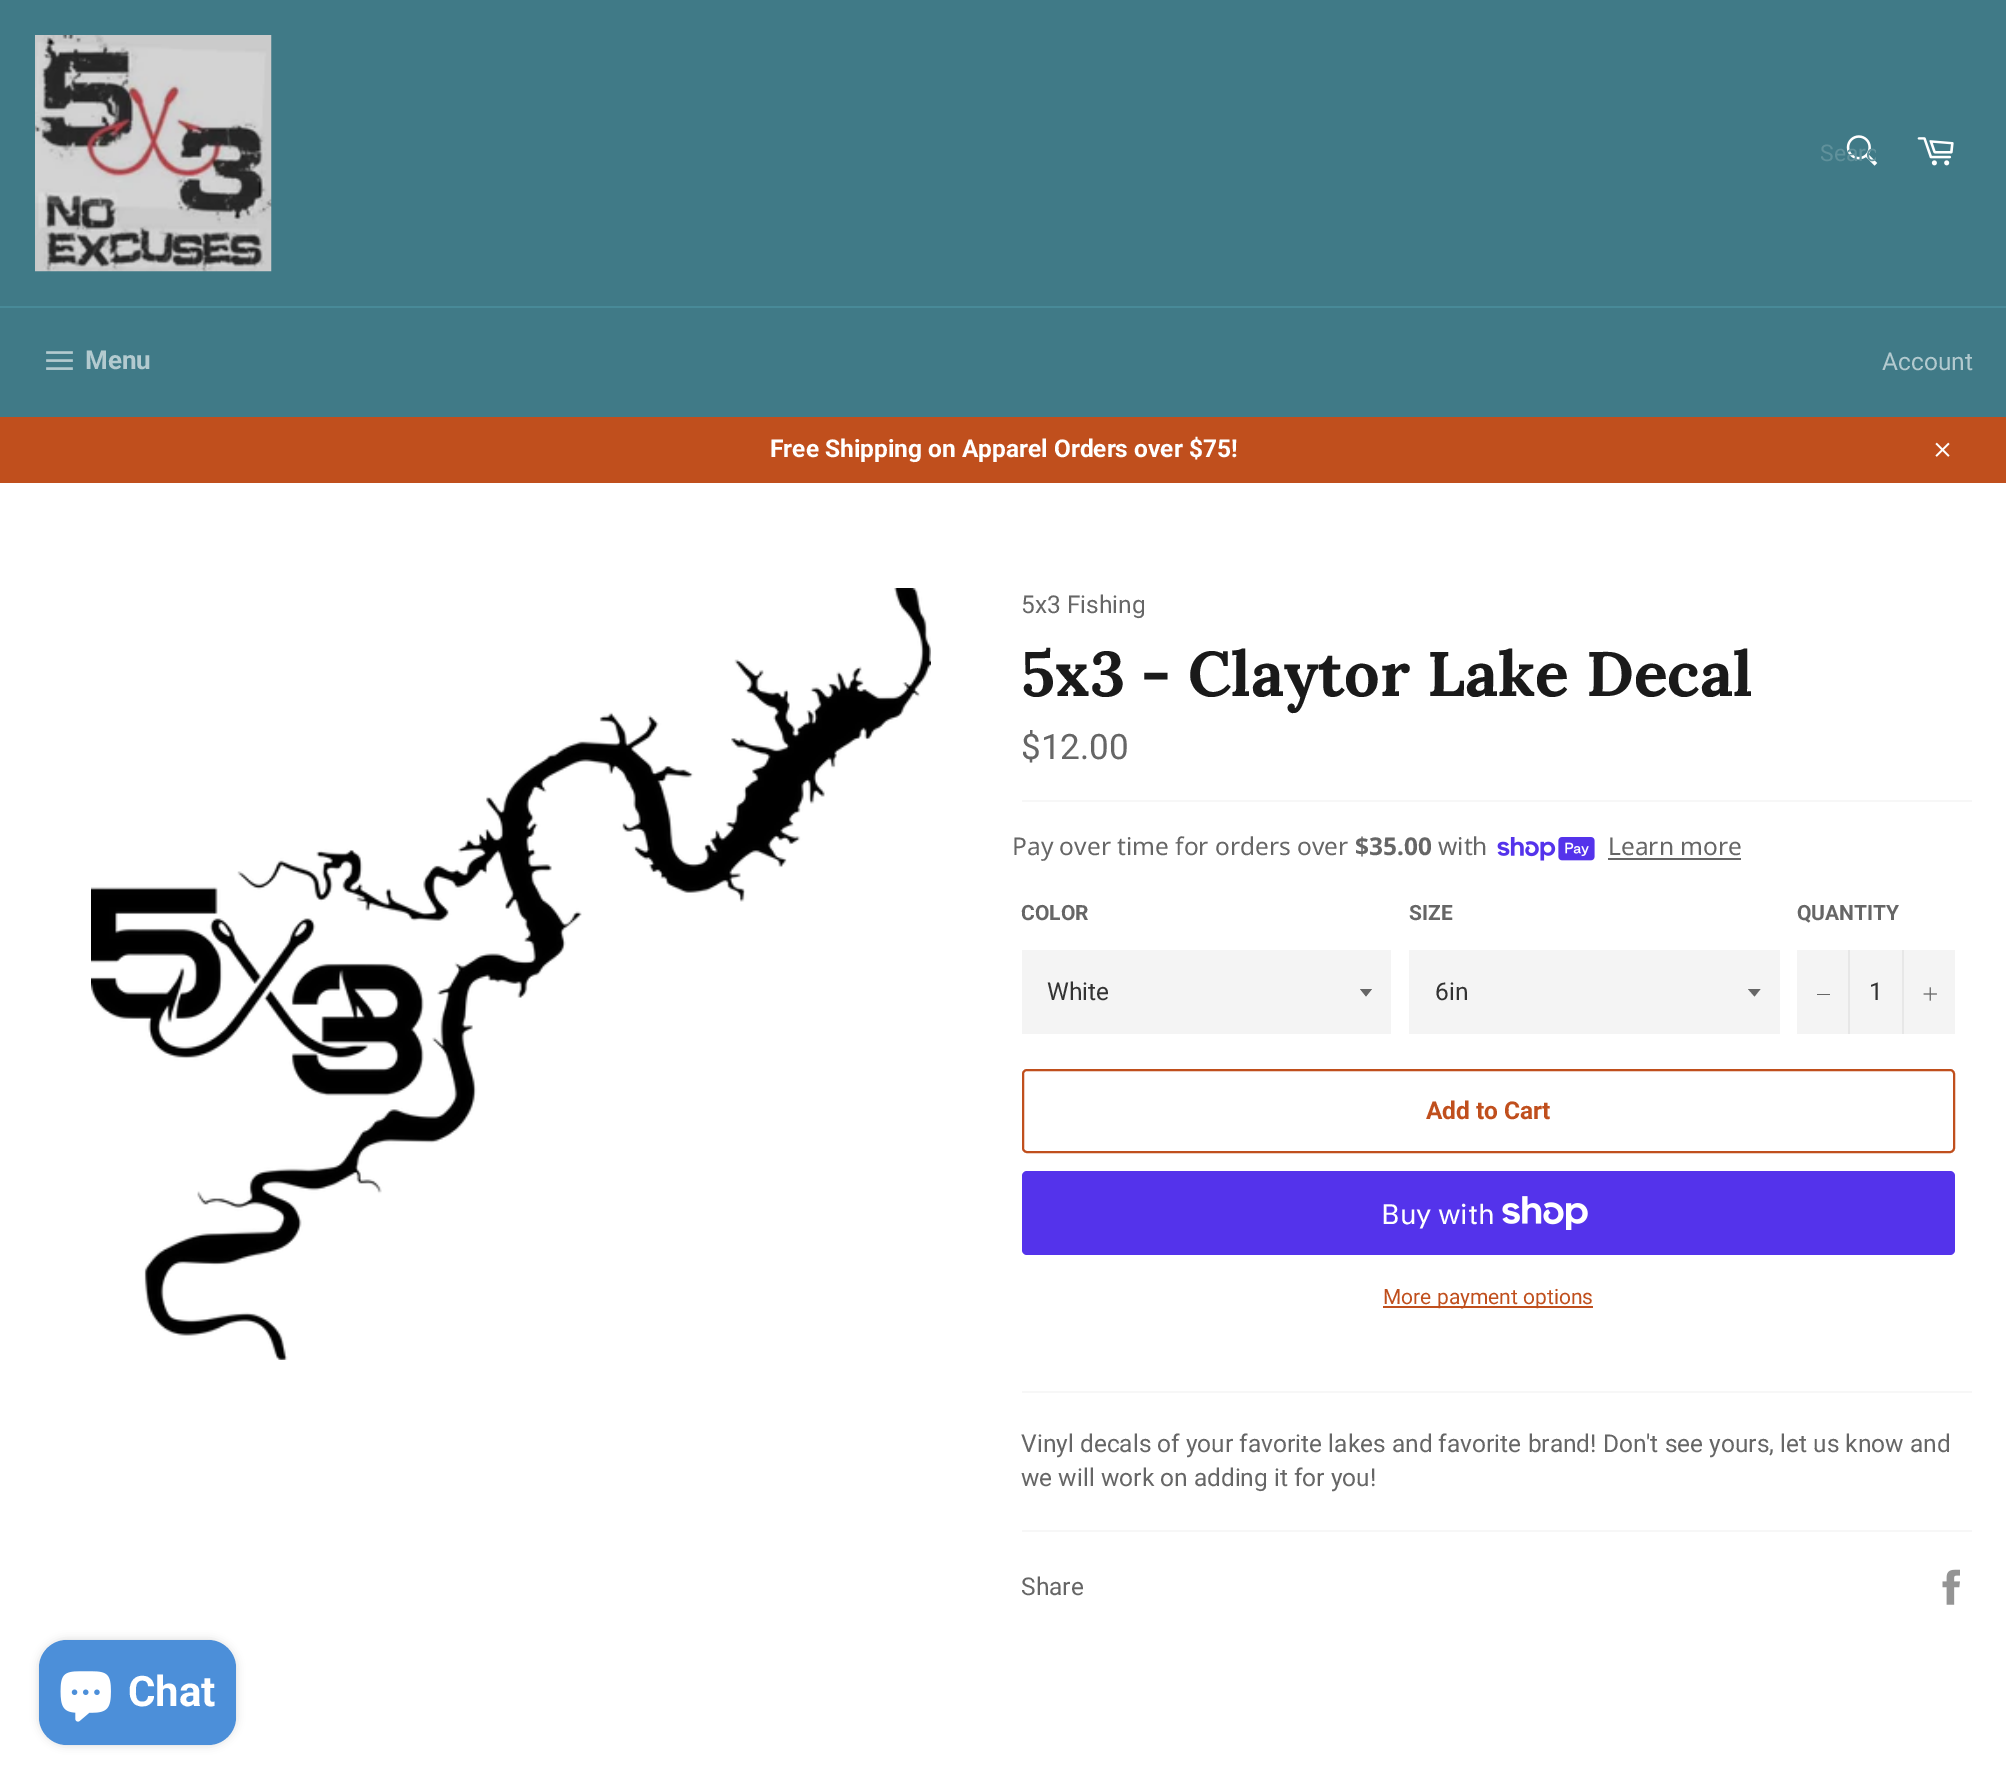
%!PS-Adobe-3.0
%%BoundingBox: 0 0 2006 1781
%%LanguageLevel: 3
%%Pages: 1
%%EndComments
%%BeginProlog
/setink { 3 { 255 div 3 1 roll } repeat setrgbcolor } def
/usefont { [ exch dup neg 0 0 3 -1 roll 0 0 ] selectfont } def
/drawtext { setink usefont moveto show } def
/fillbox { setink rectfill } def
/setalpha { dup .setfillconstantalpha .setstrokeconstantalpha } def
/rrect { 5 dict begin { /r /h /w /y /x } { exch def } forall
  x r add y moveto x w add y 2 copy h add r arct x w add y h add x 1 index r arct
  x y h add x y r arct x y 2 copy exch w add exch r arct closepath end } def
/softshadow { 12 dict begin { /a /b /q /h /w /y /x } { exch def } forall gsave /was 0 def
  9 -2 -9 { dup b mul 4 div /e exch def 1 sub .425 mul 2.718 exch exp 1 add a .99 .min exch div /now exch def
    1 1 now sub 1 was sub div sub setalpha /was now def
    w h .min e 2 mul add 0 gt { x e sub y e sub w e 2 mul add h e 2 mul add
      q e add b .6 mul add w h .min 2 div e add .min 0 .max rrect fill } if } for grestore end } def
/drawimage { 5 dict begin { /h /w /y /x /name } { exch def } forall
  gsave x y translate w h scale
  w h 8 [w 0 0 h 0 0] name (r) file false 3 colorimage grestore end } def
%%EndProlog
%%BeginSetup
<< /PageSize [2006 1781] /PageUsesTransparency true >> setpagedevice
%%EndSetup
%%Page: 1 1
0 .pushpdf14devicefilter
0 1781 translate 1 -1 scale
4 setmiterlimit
0 0 2006 1781 64 122 135 fillbox
(assets/img1.rgb) 35 35 237 237 drawimage
(assets/img2.rgb) 1846 135 32 31 drawimage
gsave
1820 140 56 26 rectclip
(Searc) 1820 161 /Roboto-Regular 23 96 145 155 drawtext
grestore
(assets/img3.rgb) 1917 137 37 29 drawimage
0 306 2006 2 72 138 152 fillbox
(assets/img4.rgb) 46 351 27 19 drawimage
(Menu) 85 369 /Roboto-Bold 26 179 202 207 drawtext
(Account) 1882 370 /Roboto-Regular 24.5 179 202 207 drawtext
0 417 2006 66 192 79 29 fillbox
(Free Shipping on Apparel Orders over $75!) 770 457 /Roboto-Bold 24.5 255 255 255 drawtext
(assets/img5.rgb) 1935 442 15 15 drawimage
0 483 2006 1298 255 255 255 fillbox
(assets/img6.rgb) 91 588 840 772 drawimage
(5x3 Fishing) 1021 613 /Roboto-Regular 24.5 102 102 102 drawtext
(5x3 - Claytor Lake Decal) 1021 696 /Lora-Bold 63 26 26 26 drawtext
($12.00) 1021 759 /Roboto-Regular 35 102 102 102 drawtext
1022 800 950 2 247 247 247 fillbox
(Pay over time for orders over) 1012 855 /NotoSans-Regular 24.5 102 102 102 drawtext
($35.00) 1355 855 /NotoSans-Bold 24.5 102 102 102 drawtext
(with) 1438 855 /NotoSans-Regular 24.5 102 102 102 drawtext
(assets/img7.rgb) 1497 837 98 24 drawimage
(Learn more) 1608 855 /NotoSans-Regular 24.5 102 102 102 drawtext
1608 858 133 2 102 102 102 fillbox
(COLOR) 1021 920 /Roboto-Bold 21 102 102 102 drawtext
1022 950 369 84 244 244 244 fillbox
102 102 102 setink
1360 989 moveto 1366 996.5 lineto 1372 989 lineto closepath fill
(White) 1047 1000 /Roboto-Regular 24.5 51 51 51 drawtext
(SIZE) 1409 920 /Roboto-Bold 21 102 102 102 drawtext
1409 950 371 84 244 244 244 fillbox
102 102 102 setink
1748 989 moveto 1754.5 996.5 lineto 1760.5 989 lineto closepath fill
(6in) 1435 1000 /Roboto-Regular 24.5 51 51 51 drawtext
(QUANTITY) 1797 920 /Roboto-Bold 21 102 102 102 drawtext
1797 950 158 84 244 244 244 fillbox
1848 950 2 84 231 231 231 fillbox
1817 994 13 1 102 102 102 fillbox
(1) 1869 1000 /Roboto-Regular 24.5 51 51 51 drawtext
1902 950 2 84 231 231 231 fillbox
(assets/img8.rgb) 1923 987 14 14 drawimage
192 79 29 setink
2 setlinewidth
1023 1070 931 82 4 rrect stroke
(Add to Cart) 1426 1119 /Roboto-Bold 24.5 192 79 29 drawtext
84 51 235 setink
1022 1171 933 84 5 rrect fill
(Buy with) 1381 1224 /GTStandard-Regular 28 255 255 255 drawtext
(assets/img9.rgb) 1502 1196 86 34 drawimage
1383 1306 210 2 192 79 29 fillbox
(More payment options) 1383 1304 /Roboto-Regular 21 192 79 29 drawtext
1022 1391 950 2 247 247 247 fillbox
(Vinyl decals of your favorite lakes and favorite brand! Don't see yours, let us know and) 1021 1452 /Roboto-Regular 24.5 102 102 102 drawtext
(we will work on adding it for you!) 1021 1486 /Roboto-Regular 24.5 102 102 102 drawtext
1022 1530 950 2 247 247 247 fillbox
(Share) 1021 1595 /Roboto-Regular 24.5 102 102 102 drawtext
(assets/img10.rgb) 1942 1569 18 36 drawimage
0 0 0 setink
39 1640 197 105 28 4.5 0.15 softshadow
76 143 217 setink
39 1640 197 105 28 rrect fill
(assets/img11.rgb) 60 1671 51 51 drawimage
(Chat) 128 1706 /Roboto-Bold 42 255 255 255 drawtext
.poppdf14devicefilter showpage
%%EOF
